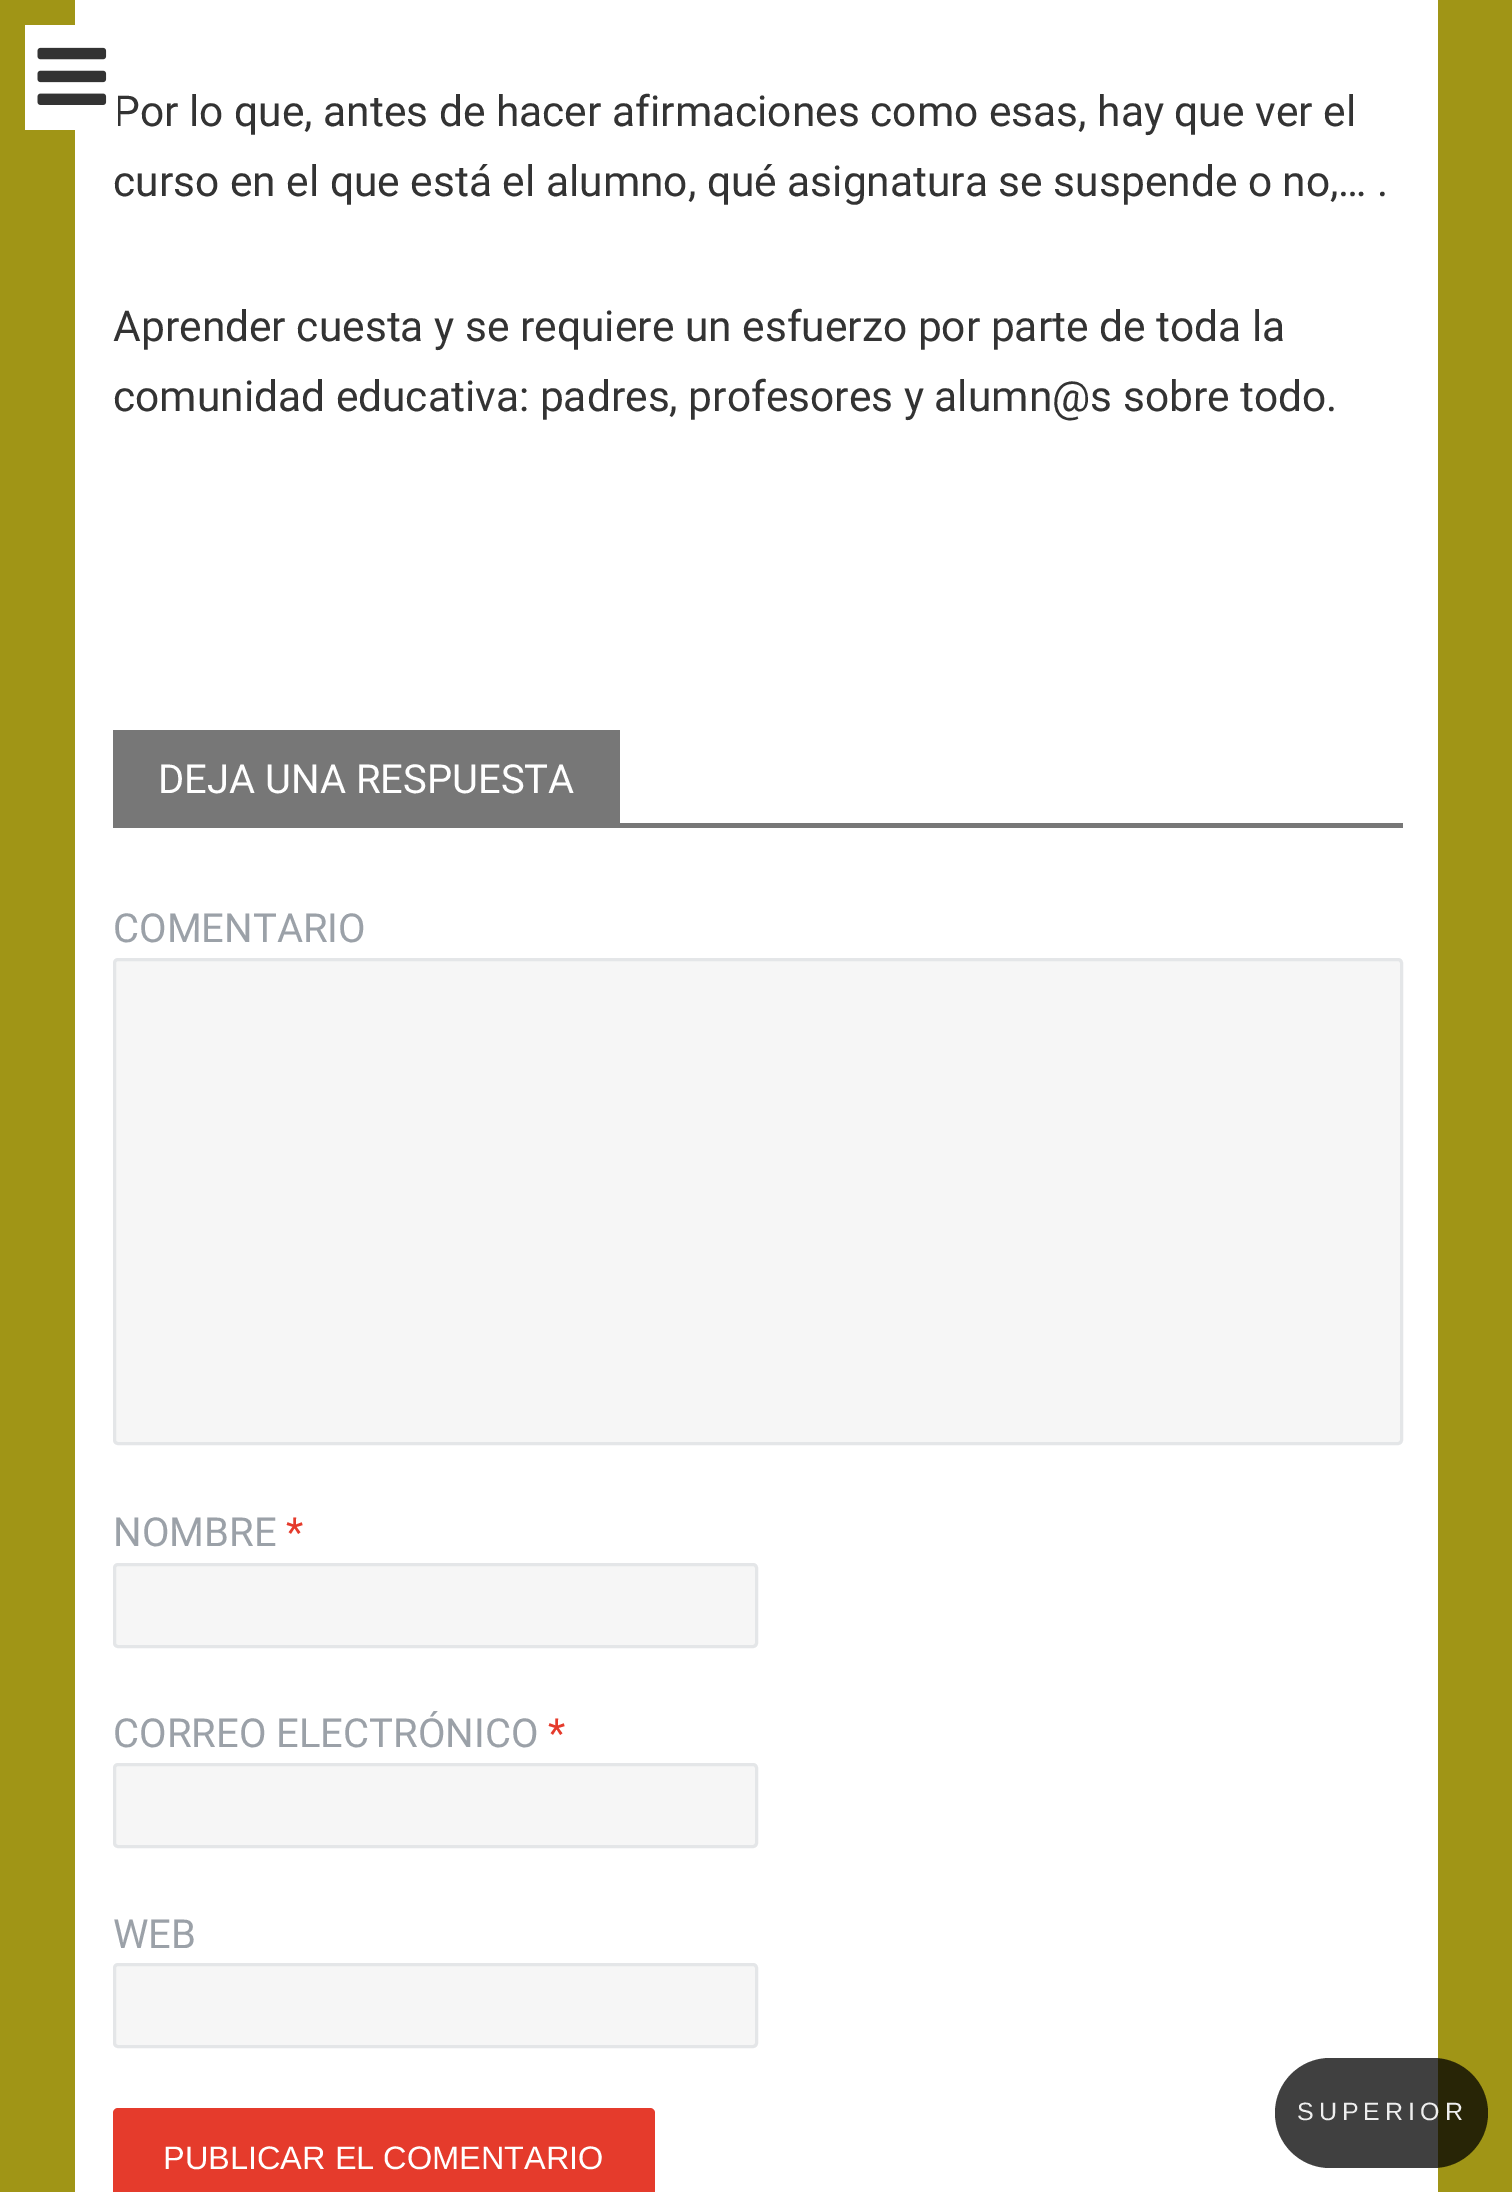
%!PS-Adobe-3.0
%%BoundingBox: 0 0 1512 2192
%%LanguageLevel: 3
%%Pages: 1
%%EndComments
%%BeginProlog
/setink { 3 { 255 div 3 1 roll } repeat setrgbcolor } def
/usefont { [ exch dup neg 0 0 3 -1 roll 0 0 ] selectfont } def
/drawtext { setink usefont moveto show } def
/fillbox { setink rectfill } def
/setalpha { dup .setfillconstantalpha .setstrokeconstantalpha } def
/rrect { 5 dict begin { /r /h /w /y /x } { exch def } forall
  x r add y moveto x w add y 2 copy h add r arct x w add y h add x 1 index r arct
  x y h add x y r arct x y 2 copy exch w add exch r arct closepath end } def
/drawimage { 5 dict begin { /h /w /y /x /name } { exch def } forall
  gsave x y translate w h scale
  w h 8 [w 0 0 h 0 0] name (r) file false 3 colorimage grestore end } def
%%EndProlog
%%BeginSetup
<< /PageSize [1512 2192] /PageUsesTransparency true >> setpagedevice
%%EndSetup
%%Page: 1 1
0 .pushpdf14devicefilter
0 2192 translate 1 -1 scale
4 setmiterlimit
0 0 1512 2192 160 149 22 fillbox
75 0 1363 2192 255 255 255 fillbox
(Por lo que, antes de hacer afirmaciones como esas, hay que ver el) 113 126 /Roboto-Regular 42.5 51 51 51 drawtext
25 25 93 105 255 255 255 fillbox
(assets/img1.rgb) 37 47 70 58 drawimage
(curso en el que está el alumno, qué asignatura se suspende o no,… .) 113 196 /Roboto-Regular 42.5 51 51 51 drawtext
(Aprender cuesta y se requiere un esfuerzo por parte de toda la) 113 341 /Roboto-Regular 42.5 51 51 51 drawtext
(comunidad educativa: padres, profesores y alumn@s sobre todo.) 113 411 /Roboto-Regular 42.5 51 51 51 drawtext
113 730 507 93 119 119 119 fillbox
(DEJA UNA RESPUESTA) 158 793 /Roboto-Regular 40 255 255 255 drawtext
113 823 1290 5 119 119 119 fillbox
(COMENTARIO) 113 942 /Roboto-Regular 40 155 161 168 drawtext
246 246 246 setink
114.5 959.5 1287 484 3.5 rrect gsave fill grestore
228 230 232 setink
3 setlinewidth
stroke
(NOMBRE) 113 1546 /Roboto-Regular 40 155 161 168 drawtext
(*) 286 1546 /Roboto-Regular 40 229 59 44 drawtext
246 246 246 setink
114.5 1564.5 642 82 3.5 rrect gsave fill grestore
228 230 232 setink
stroke
(CORREO ELECTRÓNICO) 113 1747 /Roboto-Regular 40 155 161 168 drawtext
(*) 548 1747 /Roboto-Regular 40 229 59 44 drawtext
246 246 246 setink
114.5 1764.5 642 82 3.5 rrect gsave fill grestore
228 230 232 setink
stroke
(WEB) 113 1948 /Roboto-Regular 40 155 161 168 drawtext
246 246 246 setink
114.5 1964.5 642 82 3.5 rrect gsave fill grestore
228 230 232 setink
stroke
229 59 44 setink
113 2108 542 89 5 rrect fill
(PUBLICAR EL COMENTARIO) 163 2169 /LiberationSans-Regular 32.5 255 255 255 drawtext
0.75 setalpha
0 0 0 setink
1275 2058 213 110 55 rrect fill
/LiberationSans-Regular 25 usefont
1 setalpha
238 238 238 setink
1297 2120 moveto 5 0 (SUPERIOR) ashow
.poppdf14devicefilter showpage
%%EOF
